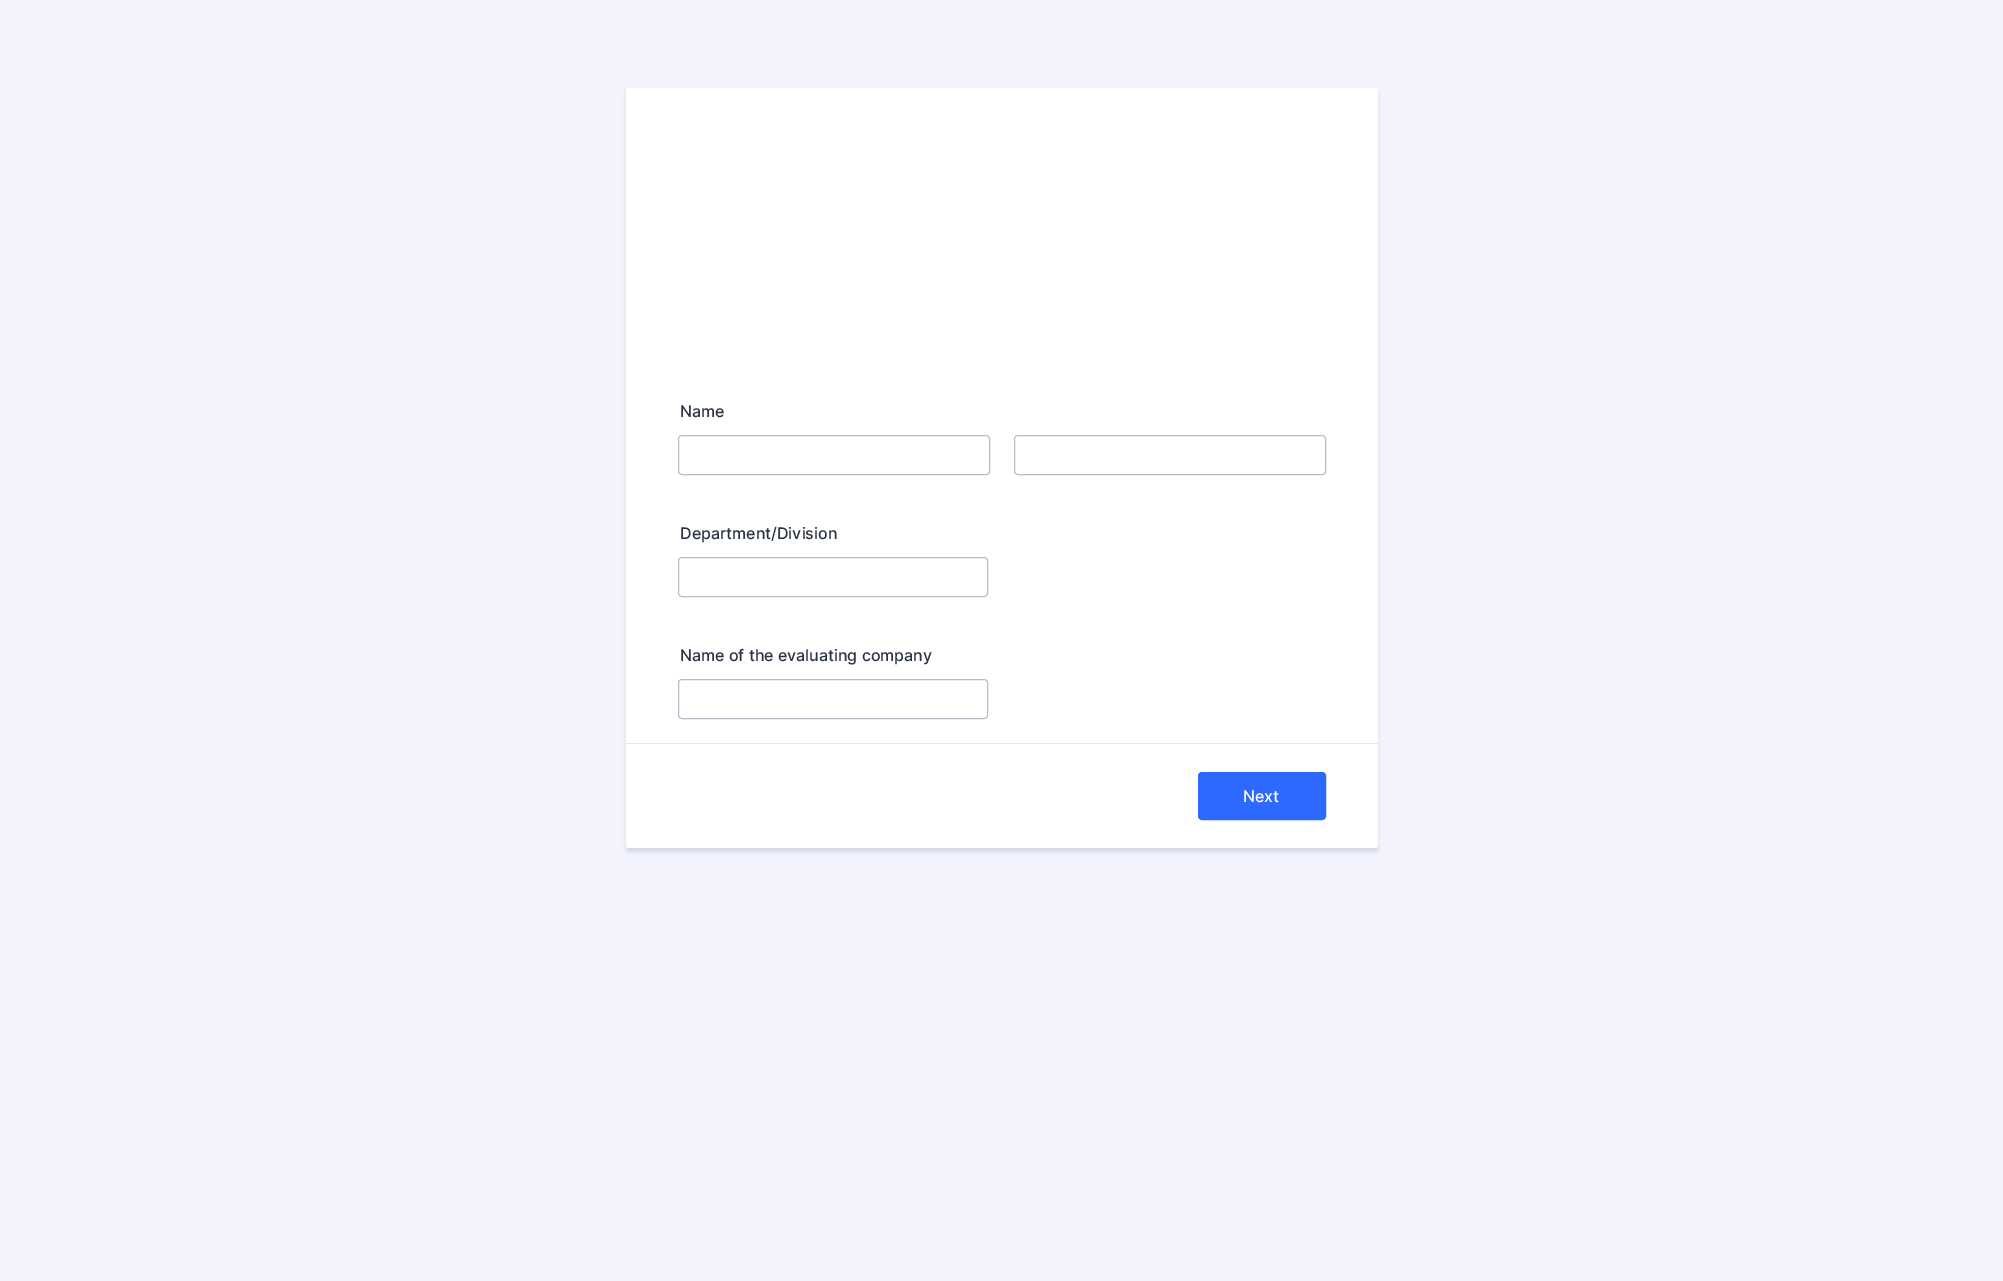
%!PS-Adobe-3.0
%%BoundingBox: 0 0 2003 1281
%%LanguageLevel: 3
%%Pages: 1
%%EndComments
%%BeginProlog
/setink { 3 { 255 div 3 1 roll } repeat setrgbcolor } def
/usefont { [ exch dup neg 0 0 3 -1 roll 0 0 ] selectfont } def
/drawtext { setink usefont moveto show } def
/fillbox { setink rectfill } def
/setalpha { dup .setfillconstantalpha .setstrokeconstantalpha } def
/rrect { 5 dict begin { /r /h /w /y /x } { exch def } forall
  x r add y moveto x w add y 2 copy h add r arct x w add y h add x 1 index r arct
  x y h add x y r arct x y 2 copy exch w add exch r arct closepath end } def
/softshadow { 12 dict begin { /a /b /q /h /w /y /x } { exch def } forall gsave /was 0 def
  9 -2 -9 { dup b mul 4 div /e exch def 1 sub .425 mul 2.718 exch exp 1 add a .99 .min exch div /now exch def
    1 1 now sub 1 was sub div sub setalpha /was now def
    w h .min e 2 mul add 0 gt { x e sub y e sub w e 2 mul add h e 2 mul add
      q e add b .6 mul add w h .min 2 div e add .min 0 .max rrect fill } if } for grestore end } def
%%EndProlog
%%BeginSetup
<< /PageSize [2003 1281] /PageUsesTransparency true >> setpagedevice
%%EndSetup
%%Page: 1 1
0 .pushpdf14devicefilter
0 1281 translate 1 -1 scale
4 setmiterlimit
0 0 2003 1281 243 243 254 fillbox
87 100 126 setink
626 92 752 760 3 2 0.21 softshadow
255 255 255 setink
626 88 752 760 3 rrect fill
(Name) 680 417 /Inter-Medium 16 44 51 69 drawtext
184 189 201 setink
678.5 435.5 311 39 3.5 rrect stroke
1014.5 435.5 311 39 3.5 rrect stroke
(Department/Division) 680 539 /Inter-Medium 16 44 51 69 drawtext
184 189 201 setink
678.5 557.5 309 39 3.5 rrect stroke
(Name of the evaluating company) 680 661 /Inter-Medium 16 44 51 69 drawtext
184 189 201 setink
678.5 679.5 309 39 3.5 rrect stroke
626 743 752 1 229 231 242 fillbox
46 105 255 setink
1198.5 772.5 127 47 3.5 rrect gsave fill grestore
stroke
(Next) 1243 802 /Inter-Medium 16 255 255 255 drawtext
.poppdf14devicefilter showpage
%%EOF
